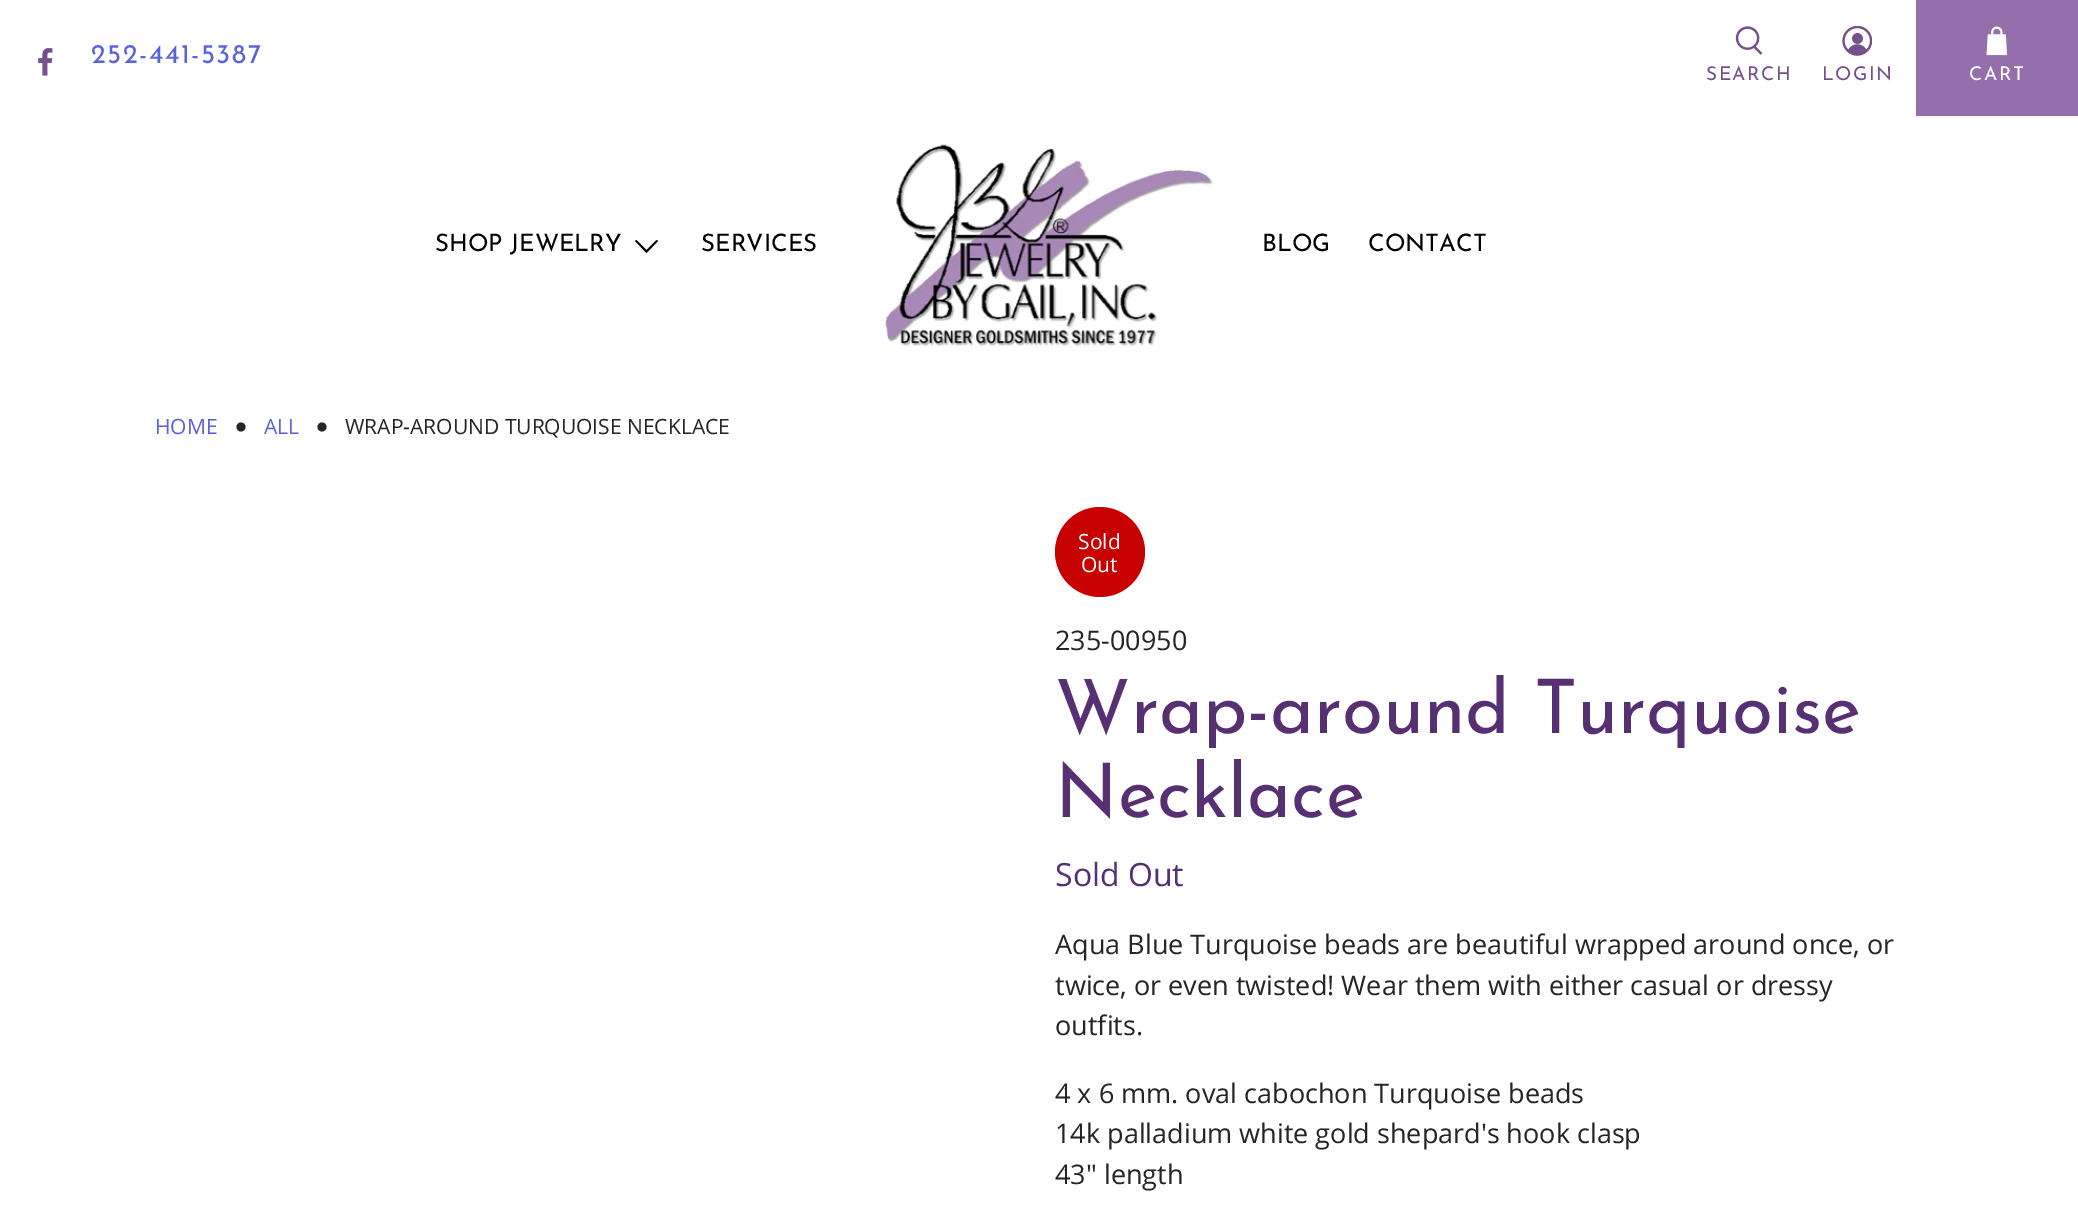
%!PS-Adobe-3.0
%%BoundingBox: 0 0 2078 1223
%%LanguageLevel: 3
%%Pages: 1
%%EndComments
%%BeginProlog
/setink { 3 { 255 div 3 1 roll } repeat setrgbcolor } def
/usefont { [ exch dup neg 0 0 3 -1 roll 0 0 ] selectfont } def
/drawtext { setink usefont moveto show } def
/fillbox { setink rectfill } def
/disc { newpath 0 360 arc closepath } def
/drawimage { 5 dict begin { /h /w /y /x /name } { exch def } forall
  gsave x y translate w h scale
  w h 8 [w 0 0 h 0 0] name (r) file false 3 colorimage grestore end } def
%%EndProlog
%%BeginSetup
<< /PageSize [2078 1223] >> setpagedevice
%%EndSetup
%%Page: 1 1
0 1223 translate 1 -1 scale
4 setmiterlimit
0 0 2078 1223 255 255 255 fillbox
(assets/img1.rgb) 38 48 15 28 drawimage
/JosefinSans-Regular 27 usefont
90 98 222 setink
91 63 moveto 1.5 0 (252-441-5387) ashow
(assets/img2.rgb) 1735 26 28 29 drawimage
/JosefinSans-Regular 19 usefont
117 80 140 setink
1706 80 moveto 1.5 0 (SEARCH) ashow
(assets/img3.rgb) 1842 26 30 30 drawimage
1822 80 moveto 1.5 0 (LOGIN) ashow
1916 0 162 116 149 111 171 fillbox
(assets/img4.rgb) 1986 26 22 30 drawimage
255 255 255 setink
1969 80 moveto 1.5 0 (CART) ashow
(SHOP JEWELRY) 435 251 /JosefinSans-Regular 24 0 0 0 drawtext
646.5 253 moveto 635 241 lineto 636.5 240 lineto 646.5 250 lineto 656.5 240 lineto 658 241 lineto closepath fill
(SERVICES) 701 251 /JosefinSans-Regular 24 0 0 0 drawtext
(assets/img5.rgb) 883 144 330 203 drawimage
(BLOG) 1262 251 /JosefinSans-Regular 24 0 0 0 drawtext
(CONTACT) 1368 251 /JosefinSans-Regular 24 0 0 0 drawtext
(HOME) 155 434 /OpenSans-Regular 21 90 98 222 drawtext
37 37 37 setink
241 427 4.5 disc fill
(ALL) 264 434 /OpenSans-Regular 21 90 98 222 drawtext
37 37 37 setink
322 427 4.5 disc fill
(WRAP-AROUND TURQUOISE NECKLACE) 345 434 /OpenSans-Regular 21 37 37 37 drawtext
199 0 0 setink
1100 552 45 disc fill
(Sold) 1078 549 /OpenSans-Regular 21 255 255 255 drawtext
(Out) 1081 572 /OpenSans-Regular 21 255 255 255 drawtext
(235-00950) 1055 650 /OpenSans-Regular 27 37 37 37 drawtext
(Wrap-around Turquoise) 1055 733 /JosefinSans-Regular 75 87 48 115 drawtext
(Necklace) 1055 817 /JosefinSans-Regular 75 87 48 115 drawtext
(Sold Out) 1055 886 /OpenSans-Regular 32 87 48 115 drawtext
(Aqua Blue Turquoise beads are beautiful wrapped around once, or) 1055 954 /OpenSans-Regular 27 37 37 37 drawtext
(twice, or even twisted! Wear them with either casual or dressy) 1055 995 /OpenSans-Regular 27 37 37 37 drawtext
(outfits.) 1055 1035 /OpenSans-Regular 27 37 37 37 drawtext
(4 x 6 mm. oval cabochon Turquoise beads) 1055 1103 /OpenSans-Regular 27 37 37 37 drawtext
(14k palladium white gold shepard's hook clasp) 1055 1143 /OpenSans-Regular 27 37 37 37 drawtext
(43" length) 1055 1184 /OpenSans-Regular 27 37 37 37 drawtext
showpage
%%EOF
